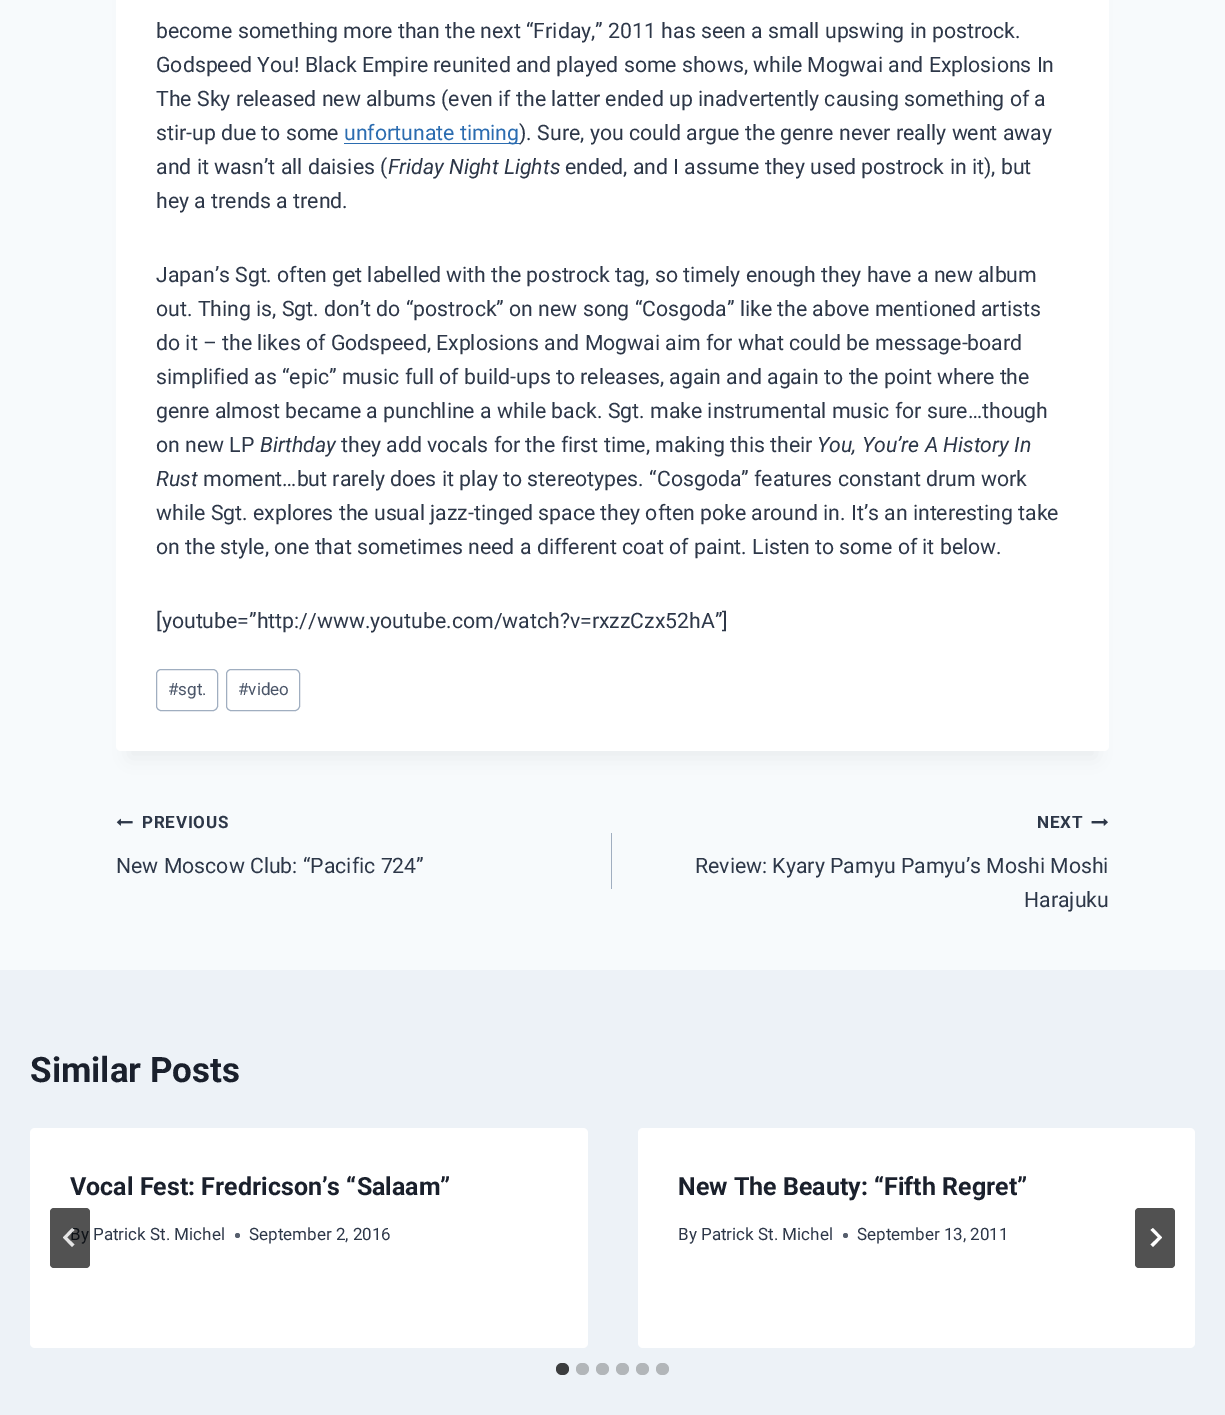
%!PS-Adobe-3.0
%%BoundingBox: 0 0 1225 1415
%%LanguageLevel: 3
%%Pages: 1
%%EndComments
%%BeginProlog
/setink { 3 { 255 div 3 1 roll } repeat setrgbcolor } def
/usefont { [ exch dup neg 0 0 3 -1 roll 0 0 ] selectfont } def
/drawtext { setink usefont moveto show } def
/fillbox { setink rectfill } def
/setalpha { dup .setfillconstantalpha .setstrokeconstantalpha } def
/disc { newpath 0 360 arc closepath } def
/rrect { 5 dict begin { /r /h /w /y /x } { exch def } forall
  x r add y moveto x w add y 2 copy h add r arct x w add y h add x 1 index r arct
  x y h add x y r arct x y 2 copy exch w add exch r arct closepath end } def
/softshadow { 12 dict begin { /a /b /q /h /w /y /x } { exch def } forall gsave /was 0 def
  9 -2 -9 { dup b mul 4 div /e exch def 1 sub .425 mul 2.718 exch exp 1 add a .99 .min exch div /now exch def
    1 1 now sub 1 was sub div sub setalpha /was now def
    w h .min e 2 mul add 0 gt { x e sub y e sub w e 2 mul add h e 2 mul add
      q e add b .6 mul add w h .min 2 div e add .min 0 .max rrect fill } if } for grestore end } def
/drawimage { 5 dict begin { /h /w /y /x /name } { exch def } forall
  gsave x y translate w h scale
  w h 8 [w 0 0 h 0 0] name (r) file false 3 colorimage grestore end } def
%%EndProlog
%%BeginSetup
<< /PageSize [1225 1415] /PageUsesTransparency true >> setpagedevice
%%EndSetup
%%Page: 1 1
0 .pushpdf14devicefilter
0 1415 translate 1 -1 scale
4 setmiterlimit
0 0 1225 1415 247 250 252 fillbox
0 0 0 setink
129 -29 967 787 0 9.5 0.05 softshadow
255 255 255 setink
116 -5 993 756 5 rrect fill
(become something more than the next “Friday,” 2011 has seen a small upswing in postrock.) 156 38 /Roboto-Regular 21.25 45 55 72 drawtext
(Godspeed You! Black Empire reunited and played some shows, while Mogwai and Explosions In) 156 72 /Roboto-Regular 21.25 45 55 72 drawtext
(The Sky released new albums \(even if the latter ended up inadvertently causing something of a) 156 106 /Roboto-Regular 21.25 45 55 72 drawtext
(stir-up due to some) 156 140 /Roboto-Regular 21.25 45 55 72 drawtext
344 143 176 1 43 108 176 fillbox
(unfortunate timing) 344 140 /Roboto-Regular 21.25 43 108 176 drawtext
(\). Sure, you could argue the genre never really went away) 519 140 /Roboto-Regular 21.25 45 55 72 drawtext
(and it wasn’t all daisies \() 156 174 /Roboto-Regular 21.25 45 55 72 drawtext
(Friday Night Lights) 388 174 /Roboto-Italic 21.25 45 55 72 drawtext
(ended, and I assume they used postrock in it\), but) 565 174 /Roboto-Regular 21.25 45 55 72 drawtext
(hey a trends a trend.) 156 208 /Roboto-Regular 21.25 45 55 72 drawtext
(Japan’s Sgt. often get labelled with the postrock tag, so timely enough they have a new album) 156 282 /Roboto-Regular 21.25 45 55 72 drawtext
(out. Thing is, Sgt. don’t do “postrock” on new song “Cosgoda” like the above mentioned artists) 156 316 /Roboto-Regular 21.25 45 55 72 drawtext
(do it – the likes of Godspeed, Explosions and Mogwai aim for what could be message-board) 156 350 /Roboto-Regular 21.25 45 55 72 drawtext
(simplified as “epic” music full of build-ups to releases, again and again to the point where the) 156 384 /Roboto-Regular 21.25 45 55 72 drawtext
(genre almost became a punchline a while back. Sgt. make instrumental music for sure…though) 156 418 /Roboto-Regular 21.25 45 55 72 drawtext
(on new LP) 156 452 /Roboto-Regular 21.25 45 55 72 drawtext
(Birthday) 260 452 /Roboto-Italic 21.25 45 55 72 drawtext
(they add vocals for the first time, making this their) 341 452 /Roboto-Regular 21.25 45 55 72 drawtext
(You, You’re A History In) 817 452 /Roboto-Italic 21.25 45 55 72 drawtext
(Rust) 156 486 /Roboto-Italic 21.25 45 55 72 drawtext
(moment…but rarely does it play to stereotypes. “Cosgoda” features constant drum work) 203 486 /Roboto-Regular 21.25 45 55 72 drawtext
(while Sgt. explores the usual jazz-tinged space they often poke around in. It’s an interesting take) 156 520 /Roboto-Regular 21.25 45 55 72 drawtext
(on the style, one that sometimes need a different coat of paint. Listen to some of it below.) 156 554 /Roboto-Regular 21.25 45 55 72 drawtext
([youtube=”http://www.youtube.com/watch?v=rxzzCzx52hA”]) 156 628 /Roboto-Regular 21.25 45 55 72 drawtext
160 174 192 setink
156.5 669.5 61 41 4.5 rrect stroke
(#sgt.) 168 695 /Roboto-Regular 17 74 85 104 drawtext
160 174 192 setink
226.5 669.5 73 41 4.5 rrect stroke
(#video) 238 695 /Roboto-Regular 17 74 85 104 drawtext
(assets/img1.rgb) 116 818 17 8 drawimage
/Roboto-Bold 17 usefont
45 55 72 setink
142 828 moveto 0.75 0 (PREVIOUS) ashow
(New Moscow Club: “Pacific 724”) 116 873 /Roboto-Regular 21.25 45 55 72 drawtext
611 833 1 56 160 174 192 fillbox
/Roboto-Bold 17 usefont
45 55 72 setink
1037 828 moveto 0.75 0 (NEXT) ashow
(assets/img2.rgb) 1091 818 17 8 drawimage
(Review: Kyary Pamyu Pamyu’s Moshi Moshi) 695 873 /Roboto-Regular 21.25 45 55 72 drawtext
(Harajuku) 1024 907 /Roboto-Regular 21.25 45 55 72 drawtext
0 970 1225 445 237 242 247 fillbox
(Similar Posts) 30 1082 /Roboto-Bold 35 26 32 44 drawtext
255 255 255 setink
30 1128 558 220 5 rrect fill
(Vocal Fest: Fredricson’s “Salaam”) 70 1195 /Roboto-Bold 25 26 32 44 drawtext
(By Patrick St. Michel) 70 1240 /Roboto-Regular 17 45 55 72 drawtext
87 95 109 setink
237.5 1235.5 2.5 disc fill
(September 2, 2016) 249 1240 /Roboto-Regular 17 45 55 72 drawtext
255 255 255 setink
638 1128 557 220 5 rrect fill
(New The Beauty: “Fifth Regret”) 678 1195 /Roboto-Bold 25 26 32 44 drawtext
(By Patrick St. Michel) 678 1240 /Roboto-Regular 17 45 55 72 drawtext
87 95 109 setink
845.5 1235.5 2.5 disc fill
(September 13, 2011) 857 1240 /Roboto-Regular 17 45 55 72 drawtext
0.68 setalpha
0 0 0 setink
50 1208 40 60 4 rrect fill
0.85 setalpha
255 255 255 setink
72 1228 moveto 74.5 1230 lineto 67 1237.5 lineto 74.5 1244.5 lineto 72 1247 lineto 63 1237.5 lineto closepath fill
1 setalpha
81 81 81 setink
1135 1208 40 60 4 rrect fill
255 255 255 setink
1153 1228 moveto 1150.5 1230 lineto 1158 1237.5 lineto 1150.5 1244.5 lineto 1153 1247 lineto 1162 1237.5 lineto closepath fill
59 61 62 setink
556 1363 13 12 6 rrect fill
178 182 185 setink
576 1363 13 12 6 rrect fill
596 1363 13 12 6 rrect fill
616 1363 13 12 6 rrect fill
636 1363 13 12 6 rrect fill
656 1363 13 12 6 rrect fill
.poppdf14devicefilter showpage
%%EOF
